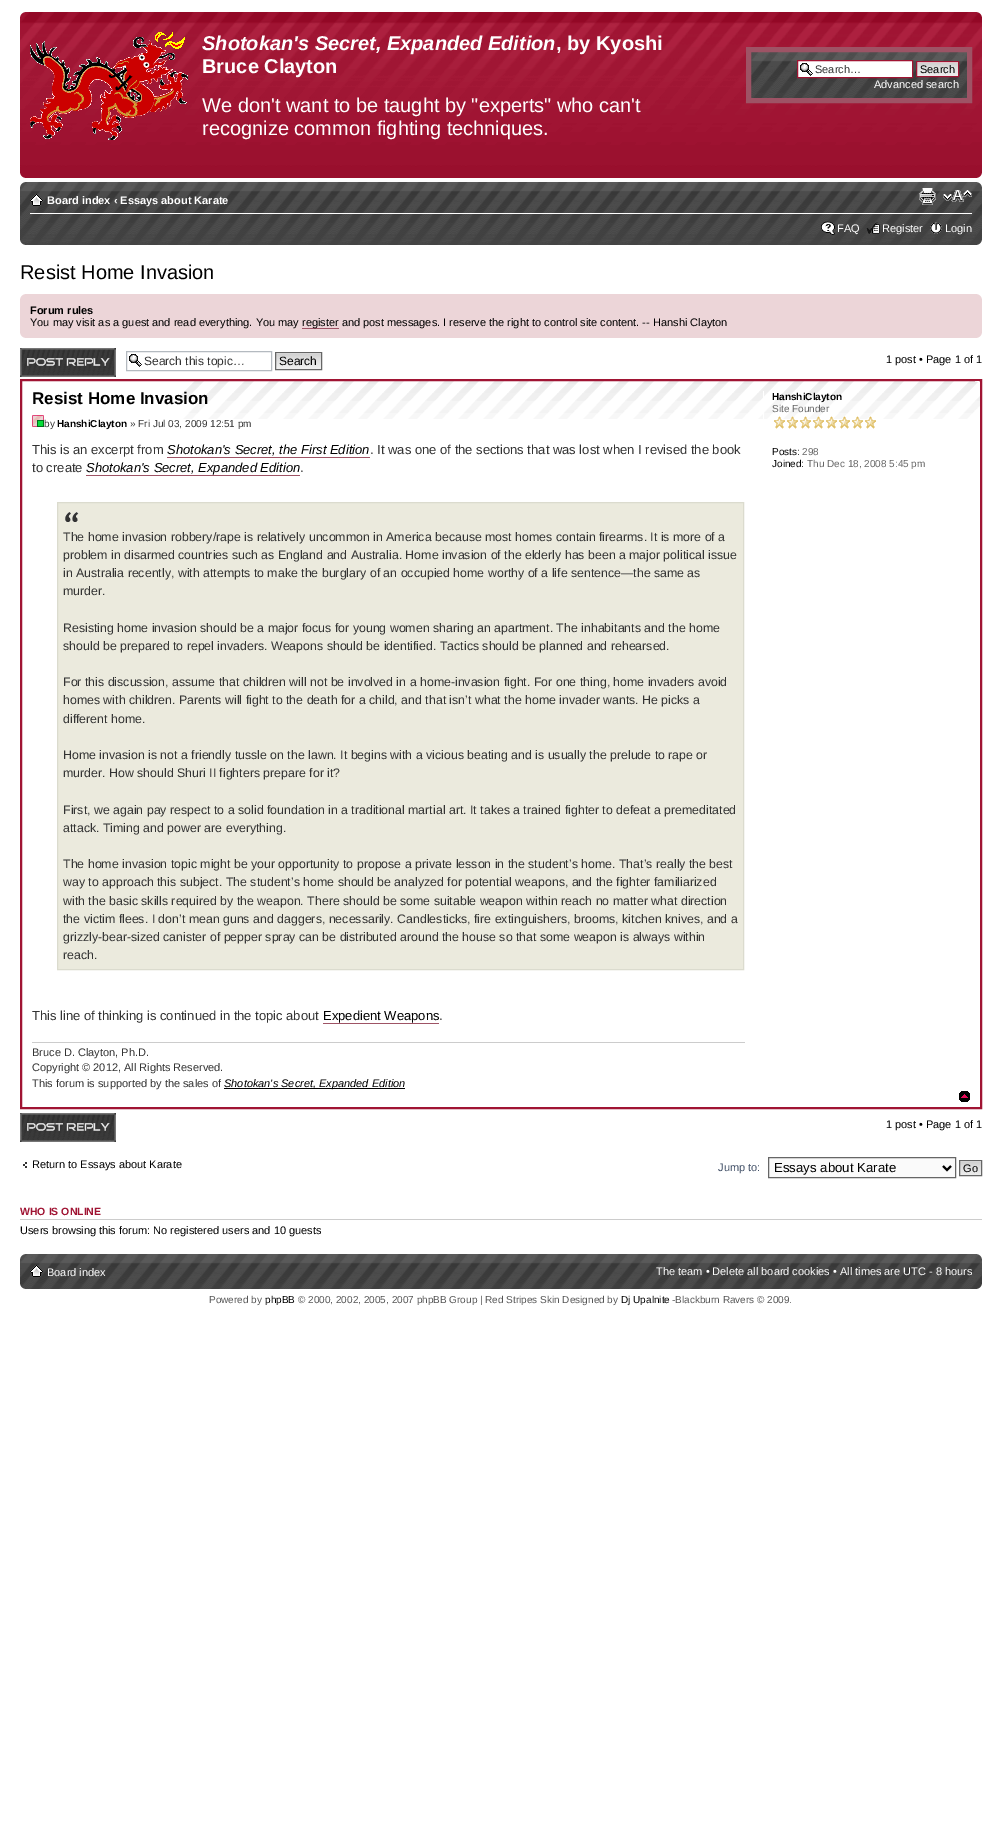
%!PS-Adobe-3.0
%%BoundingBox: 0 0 1002 1823
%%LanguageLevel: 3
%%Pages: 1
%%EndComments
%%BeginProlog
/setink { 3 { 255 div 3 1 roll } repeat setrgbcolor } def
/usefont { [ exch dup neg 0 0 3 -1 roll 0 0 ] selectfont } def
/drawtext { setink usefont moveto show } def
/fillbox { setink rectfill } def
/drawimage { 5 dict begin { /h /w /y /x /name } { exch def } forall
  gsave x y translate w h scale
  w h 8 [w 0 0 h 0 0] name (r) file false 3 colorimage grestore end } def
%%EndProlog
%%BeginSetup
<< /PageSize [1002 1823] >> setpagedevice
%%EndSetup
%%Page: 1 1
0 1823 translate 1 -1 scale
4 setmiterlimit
0 0 1002 1823 255 255 255 fillbox
(assets/img1.rgb) 20 12 962 166 drawimage
(assets/img2.rgb) 20 12 6 5 drawimage
(assets/img3.rgb) 976 12 6 5 drawimage
(assets/img4.rgb) 30 32 158 108 drawimage
(Shotokan's Secret, Expanded Edition) 202 50 /LiberationSans-BoldItalic 20 255 255 255 drawtext
(, by Kyoshi) 556 50 /LiberationSans-Bold 20 255 255 255 drawtext
(Bruce Clayton) 202 73 /LiberationSans-Bold 20 255 255 255 drawtext
(We don't want to be taught by "experts" who can't) 202 112 /LiberationSans-Regular 20 255 255 255 drawtext
(recognize common fighting techniques.) 202 135 /LiberationSans-Regular 20 255 255 255 drawtext
(assets/img5.rgb) 751 52 216 46 drawimage
158 83 101 setink
5 setlinewidth
748.5 49.5 221 51 rectstroke
798 61 114 16 255 255 255 fillbox
(assets/img6.rgb) 800 63 13 13 drawimage
160 20 51 setink
1 setlinewidth
797.5 60.5 115 17 rectstroke
(Search…) 815 73 /LiberationSans-Regular 11 51 51 51 drawtext
(assets/img7.rgb) 917 62 41 14 drawimage
160 20 51 setink
916.5 61.5 42 15 rectstroke
(Search) 920 73 /LiberationSans-Regular 11 0 0 0 drawtext
(Advanced search) 874 88 /LiberationSans-Regular 11 255 255 255 drawtext
(assets/img8.rgb) 20 173 5 5 drawimage
(assets/img9.rgb) 977 173 5 5 drawimage
(assets/img10.rgb) 20 182 962 63 drawimage
(assets/img11.rgb) 20 182 6 5 drawimage
(assets/img12.rgb) 977 182 5 5 drawimage
30 213 942 1 255 255 255 fillbox
(assets/img13.rgb) 30 194 13 12 drawimage
(Board index ‹ Essays about Karate) 47 204 /LiberationSans-Bold 11 255 255 255 drawtext
(assets/img14.rgb) 919 188 17 17 drawimage
(assets/img15.rgb) 943 190 29 12 drawimage
(assets/img16.rgb) 821 221 14 14 drawimage
(FAQ) 837 232 /LiberationSans-Regular 11 255 255 255 drawtext
(assets/img17.rgb) 866 222 14 12 drawimage
(Register) 882 232 /LiberationSans-Regular 11 255 255 255 drawtext
(assets/img18.rgb) 930 222 12 12 drawimage
(Login) 945 232 /LiberationSans-Regular 11 255 255 255 drawtext
(assets/img19.rgb) 20 240 5 5 drawimage
(assets/img20.rgb) 977 240 5 5 drawimage
(Resist Home Invasion) 20 279 /LiberationSans-Regular 20 0 0 0 drawtext
20 294 962 44 236 213 216 fillbox
(assets/img21.rgb) 20 294 5 5 drawimage
(assets/img22.rgb) 977 294 5 5 drawimage
(Forum rules) 30 314 /LiberationSans-Bold 11 0 0 0 drawtext
(You may visit as a guest and read everything. You may) 30 326 /LiberationSans-Regular 11 0 0 0 drawtext
302 328 37 1 158 83 101 fillbox
(register and post messages. I reserve the right to control site content. -- Hanshi Clayton) 302 326 /LiberationSans-Regular 11 0 0 0 drawtext
(assets/img23.rgb) 20 333 5 5 drawimage
(assets/img24.rgb) 977 333 5 5 drawimage
(assets/img25.rgb) 20 348 96 29 drawimage
(assets/img6.rgb) 129 354 13 13 drawimage
180 186 192 setink
126.5 351.5 145 19 rectstroke
(Search this topic…) 144 365 /LiberationSans-Regular 12 51 51 51 drawtext
(assets/img26.rgb) 276 353 45 16 drawimage
102 102 102 setink
275.5 352.5 46 17 rectstroke
(Search) 279 365 /LiberationSans-Regular 12 0 0 0 drawtext
(1 post • Page 1 of 1) 886 363 /LiberationSans-Regular 11 0 0 0 drawtext
(assets/img27.rgb) 180 381 800 38 drawimage
160 20 51 setink
2 setlinewidth
21 380 960 728 rectstroke
(assets/img28.rgb) 975 381 4 1 drawimage
(Resist Home Invasion) 32 404 /LiberationSans-Bold 17 0 0 0 drawtext
(assets/img29.rgb) 32 415 12 12 drawimage
(by) 44 427 /LiberationSans-Regular 10 51 51 51 drawtext
(HanshiClayton) 57 427 /LiberationSans-Bold 10 0 0 0 drawtext
(» Fri Jul 03, 2009 12:51 pm) 130 427 /LiberationSans-Regular 10 51 51 51 drawtext
(This is an excerpt from) 32 454 /LiberationSans-Regular 13 51 51 51 drawtext
(Shotokan's Secret, the First Edition) 167 454 /LiberationSans-Italic 13 0 0 0 drawtext
167 457 203 1 158 83 101 fillbox
(. It was one of the sections that was lost when I revised the book) 370 454 /LiberationSans-Regular 13 51 51 51 drawtext
(to create) 32 472 /LiberationSans-Regular 13 51 51 51 drawtext
(Shotokan's Secret, Expanded Edition) 86 472 /LiberationSans-Italic 13 0 0 0 drawtext
86 475 214 1 158 83 101 fillbox
(.) 300 472 /LiberationSans-Regular 13 51 51 51 drawtext
58 503 685 466 235 234 221 fillbox
(assets/img30.rgb) 65 512 14 10 drawimage
219 219 206 setink
1 setlinewidth
57.5 502.5 686 467 rectstroke
(The home invasion robbery/rape is relatively uncommon in America because most homes contain firearms. It is more of a) 63 541 /LiberationSans-Regular 12.35 51 51 51 drawtext
(problem in disarmed countries such as England and Australia. Home invasion of the elderly has been a major political issue) 63 559 /LiberationSans-Regular 12.35 51 51 51 drawtext
(in Australia recently, with attempts to make the burglary of an occupied home worthy of a life sentence—the same as) 63 577 /LiberationSans-Regular 12.35 51 51 51 drawtext
(murder.) 63 595 /LiberationSans-Regular 12.35 51 51 51 drawtext
(Resisting home invasion should be a major focus for young women sharing an apartment. The inhabitants and the home) 63 632 /LiberationSans-Regular 12.35 51 51 51 drawtext
(should be prepared to repel invaders. Weapons should be identified. Tactics should be planned and rehearsed.) 63 650 /LiberationSans-Regular 12.35 51 51 51 drawtext
(For this discussion, assume that children will not be involved in a home-invasion fight. For one thing, home invaders avoid) 63 686 /LiberationSans-Regular 12.35 51 51 51 drawtext
(homes with children. Parents will fight to the death for a child, and that isn’t what the home invader wants. He picks a) 63 704 /LiberationSans-Regular 12.35 51 51 51 drawtext
(different home.) 63 723 /LiberationSans-Regular 12.35 51 51 51 drawtext
(Home invasion is not a friendly tussle on the lawn. It begins with a vicious beating and is usually the prelude to rape or) 63 759 /LiberationSans-Regular 12.35 51 51 51 drawtext
(murder. How should Shuri II fighters prepare for it?) 63 777 /LiberationSans-Regular 12.35 51 51 51 drawtext
(First, we again pay respect to a solid foundation in a traditional martial art. It takes a trained fighter to defeat a premeditated) 63 814 /LiberationSans-Regular 12.35 51 51 51 drawtext
(attack. Timing and power are everything.) 63 832 /LiberationSans-Regular 12.35 51 51 51 drawtext
(The home invasion topic might be your opportunity to propose a private lesson in the student’s home. That’s really the best) 63 868 /LiberationSans-Regular 12.35 51 51 51 drawtext
(way to approach this subject. The student’s home should be analyzed for potential weapons, and the fighter familiarized) 63 886 /LiberationSans-Regular 12.35 51 51 51 drawtext
(with the basic skills required by the weapon. There should be some suitable weapon within reach no matter what direction) 63 905 /LiberationSans-Regular 12.35 51 51 51 drawtext
(the victim flees. I don’t mean guns and daggers, necessarily. Candlesticks, fire extinguishers, brooms, kitchen knives, and a) 63 923 /LiberationSans-Regular 12.35 51 51 51 drawtext
(grizzly-bear-sized canister of pepper spray can be distributed around the house so that some weapon is always within) 63 941 /LiberationSans-Regular 12.35 51 51 51 drawtext
(reach.) 63 959 /LiberationSans-Regular 12.35 51 51 51 drawtext
(This line of thinking is continued in the topic about) 32 1020 /LiberationSans-Regular 13 51 51 51 drawtext
(Expedient Weapons) 323 1020 /LiberationSans-Regular 13 0 0 0 drawtext
323 1023 116 1 158 83 101 fillbox
(.) 439 1020 /LiberationSans-Regular 13 51 51 51 drawtext
32 1042 713 1 204 204 204 fillbox
(Bruce D. Clayton, Ph.D.) 32 1056 /LiberationSans-Regular 11 51 51 51 drawtext
(Copyright © 2012, All Rights Reserved.) 32 1071 /LiberationSans-Regular 11 51 51 51 drawtext
(This forum is supported by the sales of) 32 1087 /LiberationSans-Regular 11 51 51 51 drawtext
224 1088 181 1 0 0 0 fillbox
(Shotokan's Secret, Expanded Edition) 224 1087 /LiberationSans-Italic 11 0 0 0 drawtext
763 391 1 28 255 255 255 fillbox
(HanshiClayton) 772 400 /LiberationSans-Bold 10 0 0 0 drawtext
(Site Founder) 772 412 /LiberationSans-Regular 10 102 102 102 drawtext
(assets/img31.rgb) 774 416 102 13 drawimage
(Posts:) 772 455 /LiberationSans-Regular 10 0 0 0 drawtext
(298) 802 455 /LiberationSans-Regular 10 102 102 102 drawtext
(Joined:) 772 467 /LiberationSans-Regular 10 0 0 0 drawtext
(Thu Dec 18, 2008 5:45 pm) 807 467 /LiberationSans-Regular 10 102 102 102 drawtext
(assets/img32.rgb) 959 1091 11 11 drawimage
(assets/img25.rgb) 20 1113 96 29 drawimage
(1 post • Page 1 of 1) 886 1128 /LiberationSans-Regular 11 0 0 0 drawtext
(assets/img33.rgb) 23 1162 4 6 drawimage
(Return to Essays about Karate) 32 1168 /LiberationSans-Regular 11 0 0 0 drawtext
(Jump to:) 718 1171 /LiberationSans-Regular 11 66 80 103 drawtext
250 250 250 setink
768.5 1157.5 moveto 955.5 1157.5 lineto 955.5 1177.5 lineto 768.5 1177.5 lineto closepath gsave fill grestore
102 102 102 setink
stroke
0 0 0 setink
2 setlinewidth
943 1166 moveto 947 1170 lineto 951 1166 lineto stroke
(Essays about Karate) 774 1172 /LiberationSans-Regular 13.25 0 0 0 drawtext
(assets/img34.rgb) 960 1161 21 14 drawimage
102 102 102 setink
1 setlinewidth
959.5 1160.5 22 15 rectstroke
(Go) 963 1172 /LiberationSans-Regular 11 0 0 0 drawtext
20 1219 962 1 204 204 204 fillbox
(WHO IS ONLINE) 20 1215 /LiberationSans-Bold 10.5 160 20 51 drawtext
(Users browsing this forum: No registered users and 10 guests) 20 1234 /LiberationSans-Regular 11 0 0 0 drawtext
(assets/img35.rgb) 20 1254 962 35 drawimage
(assets/img11.rgb) 20 1254 6 5 drawimage
(assets/img12.rgb) 977 1254 5 5 drawimage
(assets/img36.rgb) 30 1265 13 12 drawimage
(Board index) 47 1276 /LiberationSans-Regular 11 255 255 255 drawtext
(The team • Delete all board cookies • All times are UTC - 8 hours) 656 1275 /LiberationSans-Regular 11 255 255 255 drawtext
(assets/img37.rgb) 20 1284 5 5 drawimage
(assets/img38.rgb) 977 1284 5 5 drawimage
(Powered by) 209 1303 /LiberationSans-Regular 10 85 85 85 drawtext
(phpBB) 265 1303 /LiberationSans-Regular 10 0 0 0 drawtext
(© 2000, 2002, 2005, 2007 phpBB Group | Red Stripes Skin Designed by) 298 1303 /LiberationSans-Regular 10 85 85 85 drawtext
(Dj Upalnite) 621 1303 /LiberationSans-Regular 10 0 0 0 drawtext
(-Blackburn Ravers © 2009.) 672 1303 /LiberationSans-Regular 10 85 85 85 drawtext
showpage
%%EOF
